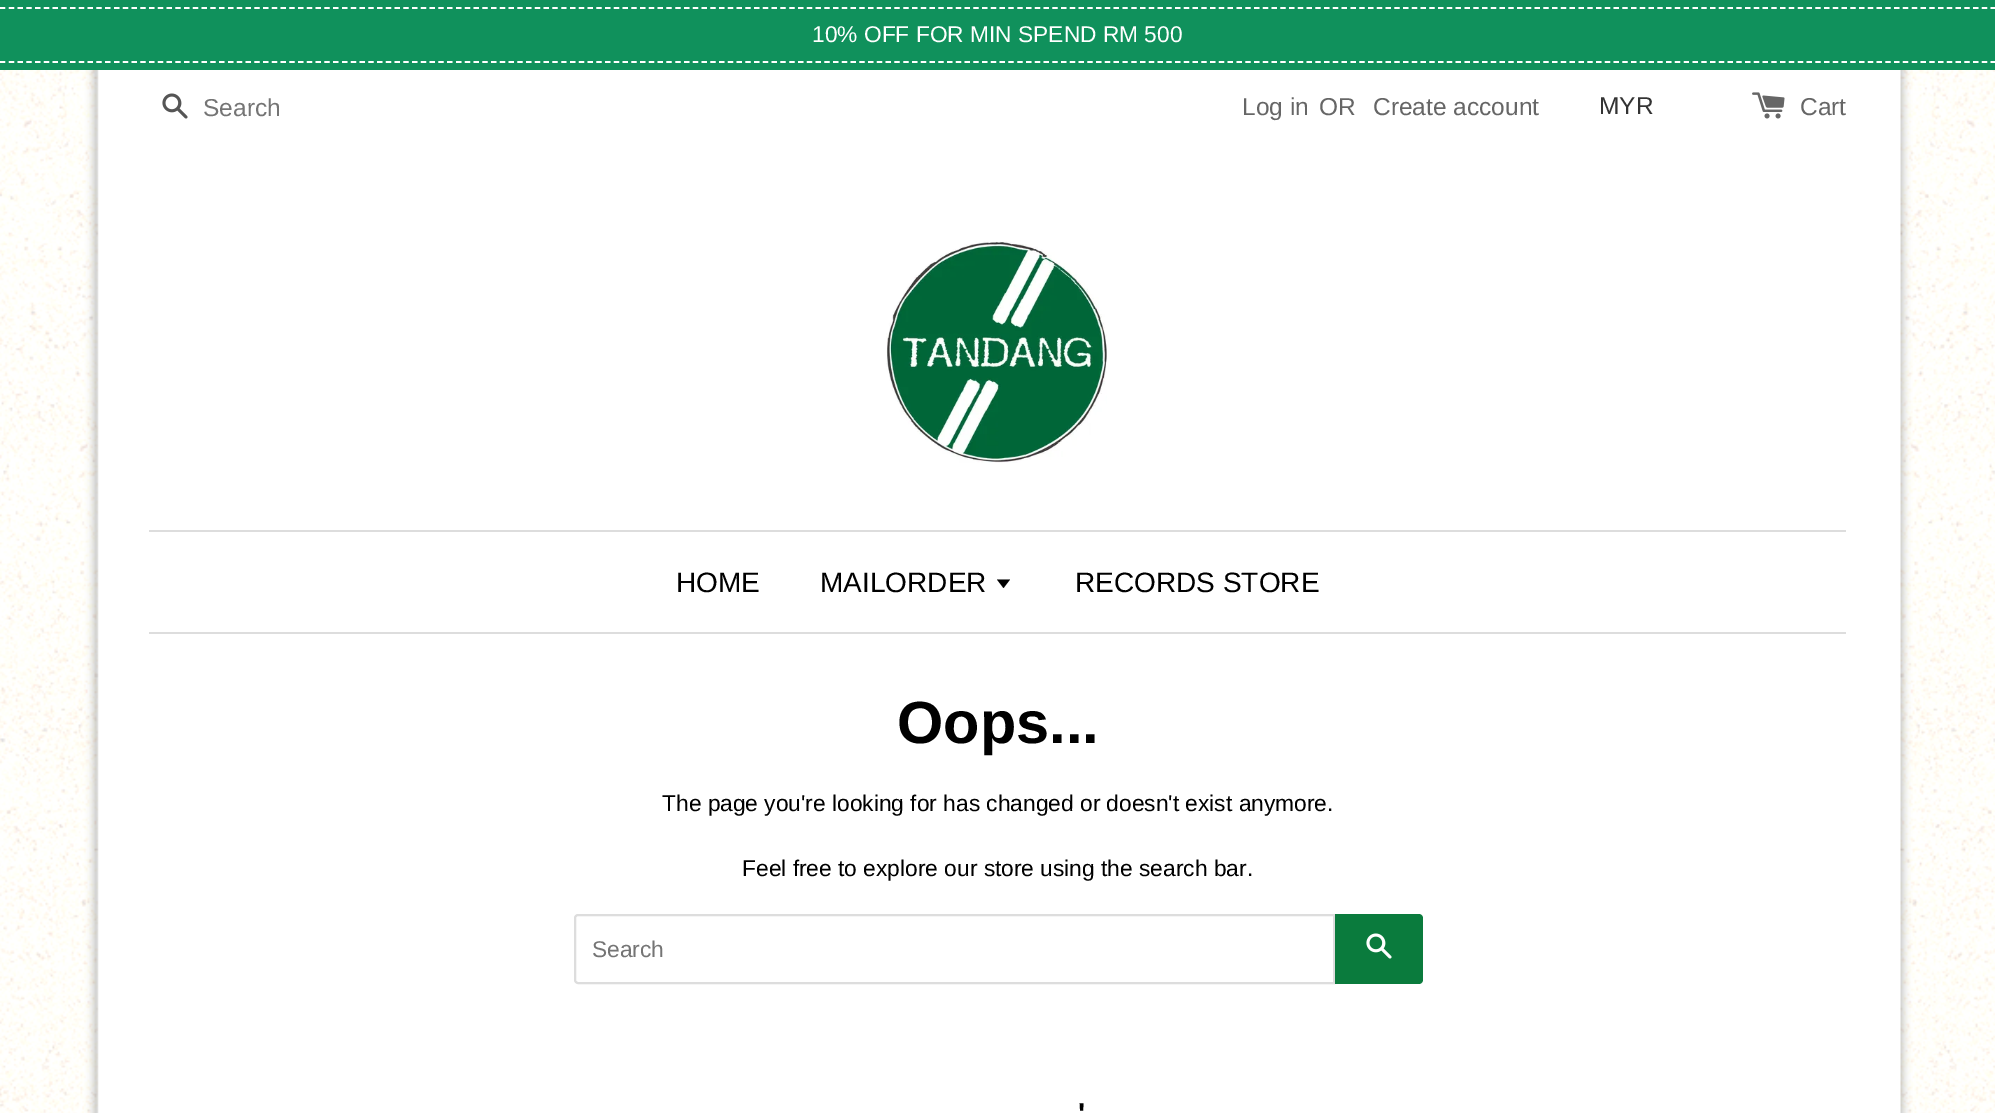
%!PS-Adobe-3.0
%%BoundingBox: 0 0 1995 1113
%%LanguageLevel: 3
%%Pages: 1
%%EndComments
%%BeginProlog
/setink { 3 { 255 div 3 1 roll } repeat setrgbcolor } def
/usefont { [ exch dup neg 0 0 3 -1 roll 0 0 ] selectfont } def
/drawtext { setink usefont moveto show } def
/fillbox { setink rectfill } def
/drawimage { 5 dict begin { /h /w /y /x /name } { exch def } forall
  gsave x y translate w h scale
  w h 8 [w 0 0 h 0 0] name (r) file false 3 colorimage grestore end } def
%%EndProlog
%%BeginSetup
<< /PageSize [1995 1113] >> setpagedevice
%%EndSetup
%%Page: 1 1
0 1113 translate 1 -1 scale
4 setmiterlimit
0 0 1995 1113 255 255 255 fillbox
(assets/img1.rgb) 0 70 1995 1043 drawimage
0 0 1995 70 16 145 92 fillbox
255 255 255 setink
1.8 setlinewidth
[5.25 3.52] 0 setdash
0 8 moveto 1995 8 lineto stroke
0 62 moveto 1995 62 lineto stroke
(10% OFF FOR MIN SPEND RM 500) 812 42 /LiberationSans-Regular 22.75 255 255 255 drawtext
(assets/img2.rgb) 162 93 26 26 drawimage
(Search) 203 116 /LiberationSans-Regular 24.5 117 117 117 drawtext
(Log in) 1242 115 /LiberationSans-Regular 24.5 102 102 102 drawtext
(OR) 1319 115 /LiberationSans-Regular 24.5 102 102 102 drawtext
(Create account) 1373 115 /LiberationSans-Regular 24.5 102 102 102 drawtext
(MYR) 1599 114 /LiberationSans-Regular 24.5 51 51 51 drawtext
(assets/img3.rgb) 1752 92 33 27 drawimage
(Cart) 1800 115 /LiberationSans-Regular 24.5 102 102 102 drawtext
(assets/img4.rgb) 886 241 221 222 drawimage
149 530 1697 2 221 221 221 fillbox
149 632 1697 2 221 221 221 fillbox
(HOME) 676 592 /LiberationSans-Regular 28 0 0 0 drawtext
(MAILORDER) 820 592 /LiberationSans-Regular 28 0 0 0 drawtext
997 579.5 moveto 1003.5 588 lineto 1010 579.5 lineto closepath fill
(RECORDS STORE) 1075 592 /LiberationSans-Regular 28 0 0 0 drawtext
(Oops...) 897 743 /LiberationSans-Bold 59.5 0 0 0 drawtext
(The page you're looking for has changed or doesn't exist anymore.) 662 811 /LiberationSans-Regular 22.75 0 0 0 drawtext
(Feel free to explore our store using the search bar.) 742 876 /LiberationSans-Regular 22.75 0 0 0 drawtext
221 221 221 setink
2 setlinewidth
[] 0 setdash
578 915 moveto 1334 915 lineto 1334 983 lineto 578 983 lineto 576.5 983 575 981.5 575 980 curveto 575 918 lineto 575 916.5 576.5 915 578 915 curveto closepath stroke
(Search) 592 957 /LiberationSans-Regular 22.75 117 117 117 drawtext
10 123 61 setink
1335 914 moveto 1419 914 lineto 1421 914 1423 916 1423 918 curveto 1423 980 lineto 1423 982 1421 984 1419 984 curveto 1335 984 lineto closepath fill
(assets/img5.rgb) 1366 933 26 26 drawimage
(') 1078 1124 /LiberationSans-Bold 30 0 0 0 drawtext
showpage
%%EOF
